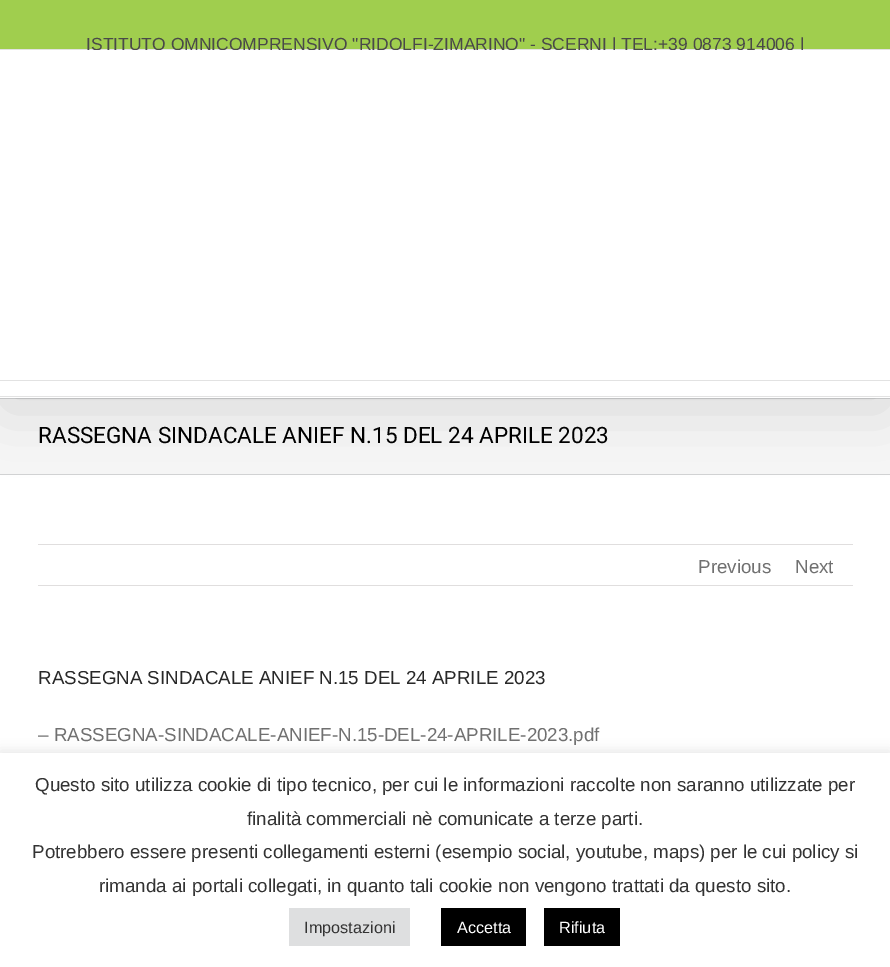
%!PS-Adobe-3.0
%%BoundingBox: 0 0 890 967
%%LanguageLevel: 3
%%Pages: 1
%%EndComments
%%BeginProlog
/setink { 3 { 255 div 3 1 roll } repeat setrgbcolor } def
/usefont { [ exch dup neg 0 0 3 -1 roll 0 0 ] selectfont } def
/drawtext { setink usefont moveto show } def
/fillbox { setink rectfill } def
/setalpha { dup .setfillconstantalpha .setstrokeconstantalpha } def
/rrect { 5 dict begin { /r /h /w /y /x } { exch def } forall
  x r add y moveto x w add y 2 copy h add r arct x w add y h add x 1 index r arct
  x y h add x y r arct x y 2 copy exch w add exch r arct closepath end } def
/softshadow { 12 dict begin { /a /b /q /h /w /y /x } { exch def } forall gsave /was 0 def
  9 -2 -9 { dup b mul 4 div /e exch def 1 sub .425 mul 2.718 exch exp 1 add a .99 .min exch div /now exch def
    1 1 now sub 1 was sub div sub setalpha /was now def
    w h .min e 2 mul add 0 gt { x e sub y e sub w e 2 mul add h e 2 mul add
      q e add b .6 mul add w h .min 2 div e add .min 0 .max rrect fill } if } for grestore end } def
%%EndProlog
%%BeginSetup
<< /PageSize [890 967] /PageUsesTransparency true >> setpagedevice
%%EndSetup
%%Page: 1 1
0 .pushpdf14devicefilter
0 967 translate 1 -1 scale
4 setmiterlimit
0 0 890 967 246 246 246 fillbox
0 398 890 1 210 211 212 fillbox
0 474 890 1 210 211 212 fillbox
0 475 890 278 255 255 255 fillbox
0 0 0 setink
3 3 885 405 0 31 0.14 softshadow
0 0 890 49 160 206 78 fillbox
0 49 890 1 226 226 226 fillbox
(ISTITUTO OMNICOMPRENSIVO "RIDOLFI-ZIMARINO" - SCERNI | TEL:+39 0873 914006 |) 86 50 /LiberationSans-Regular 17.5 73 73 73 drawtext
0 50 890 330 255 255 255 fillbox
0 380 890 1 226 226 226 fillbox
0 381 890 17 255 255 255 fillbox
0 396 890 1 226 226 226 fillbox
(RASSEGNA SINDACALE ANIEF N.15 DEL 24 APRILE 2023) 38 443 /Roboto-Regular 22.5 0 0 0 drawtext
38 544 815 1 224 222 222 fillbox
38 585 815 1 224 222 222 fillbox
(Previous) 698 573 /LiberationSans-Regular 18.75 112 112 112 drawtext
(Next) 795 573 /LiberationSans-Regular 18.75 112 112 112 drawtext
(RASSEGNA SINDACALE ANIEF N.15 DEL 24 APRILE 2023) 38 684 /LiberationSans-Regular 18.75 40 40 40 drawtext
(– RASSEGNA-SINDACALE-ANIEF-N.15-DEL-24-APRILE-2023.pdf) 38 741 /LiberationSans-Regular 18.75 112 112 112 drawtext
172 171 171 setink
0 751 890 215 0 6 0.3 softshadow
0 753 890 214 255 255 255 fillbox
(Questo sito utilizza cookie di tipo tecnico, per cui le informazioni raccolte non saranno utilizzate per) 35 791 /LiberationSans-Regular 18.75 51 51 51 drawtext
(finalità commerciali nè comunicate a terze parti.) 247 825 /LiberationSans-Regular 18.75 51 51 51 drawtext
(Potrebbero essere presenti collegamenti esterni \(esempio social, youtube, maps\) per le cui policy si) 32 858 /LiberationSans-Regular 18.75 51 51 51 drawtext
(rimanda ai portali collegati, in quanto tali cookie non vengono trattati da questo sito.) 99 892 /LiberationSans-Regular 18.75 51 51 51 drawtext
289 908 121 38 222 223 224 fillbox
(Impostazioni) 304 933 /LiberationSans-Regular 16.25 51 51 51 drawtext
441 908 85 38 0 0 0 fillbox
(Accetta) 457 933 /LiberationSans-Regular 16.25 255 255 255 drawtext
544 908 76 38 0 0 0 fillbox
(Rifiuta) 559 933 /LiberationSans-Regular 16.25 255 255 255 drawtext
.poppdf14devicefilter showpage
%%EOF
